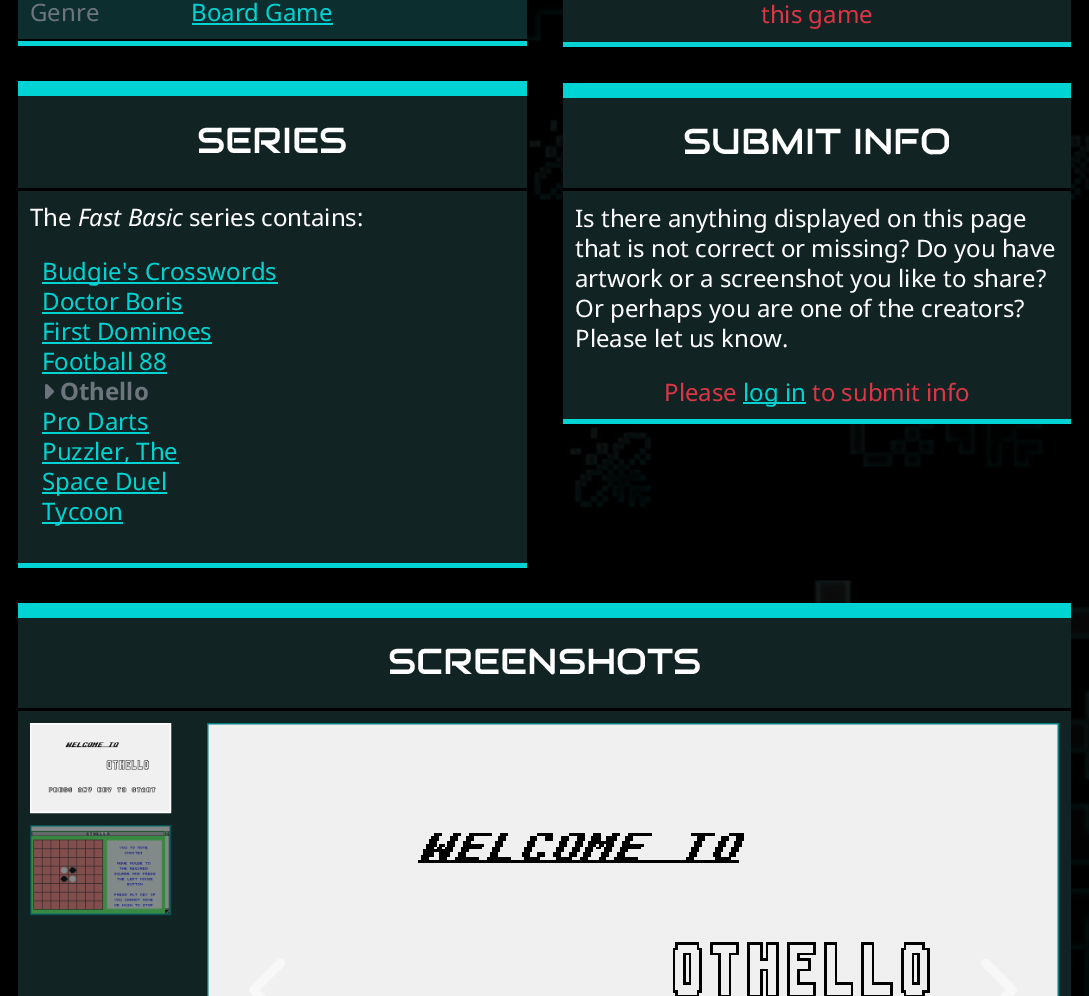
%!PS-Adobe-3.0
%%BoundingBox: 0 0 1089 996
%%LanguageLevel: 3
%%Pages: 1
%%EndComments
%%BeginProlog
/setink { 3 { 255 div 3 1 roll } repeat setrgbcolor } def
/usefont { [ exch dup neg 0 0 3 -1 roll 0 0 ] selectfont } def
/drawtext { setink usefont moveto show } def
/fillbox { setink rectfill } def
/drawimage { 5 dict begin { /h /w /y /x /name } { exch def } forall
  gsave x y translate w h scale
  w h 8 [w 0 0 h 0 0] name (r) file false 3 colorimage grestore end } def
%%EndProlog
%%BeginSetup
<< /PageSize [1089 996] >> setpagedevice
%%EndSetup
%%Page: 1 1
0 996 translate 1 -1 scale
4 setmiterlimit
0 0 1089 996 0 0 0 fillbox
(assets/img1.rgb) 527 0 562 996 drawimage
18 41 509 5 0 211 211 fillbox
18 0 509 39 13 46 46 fillbox
(Genre) 30 21 /NotoSans-Regular 24 108 117 125 drawtext
(Board Game) 191 21 /NotoSans-Regular 24 0 211 211 drawtext
192 23 141 2 0 211 211 fillbox
18 96 509 467 18 35 35 fillbox
18 81 509 15 0 211 211 fillbox
18 563 509 5 0 211 211 fillbox
18 188 509 3 0 0 0 fillbox
(SERIES) 197 153 /Audiowide-Regular 36 255 255 255 drawtext
(The) 30 226 /NotoSans-Regular 24 255 255 255 drawtext
(Fast Basic) 78 226 /NotoSans-Italic 24 255 255 255 drawtext
(series contains:) 189 226 /NotoSans-Regular 24 255 255 255 drawtext
42 282 236 2 0 211 211 fillbox
(Budgie's Crosswords) 42 280 /NotoSans-Regular 24 0 211 211 drawtext
(Doctor Boris) 42 310 /NotoSans-Regular 24 0 211 211 drawtext
42 312 141 2 0 211 211 fillbox
(First Dominoes) 42 340 /NotoSans-Regular 24 0 211 211 drawtext
42 342 170 2 0 211 211 fillbox
(Football 88) 42 370 /NotoSans-Regular 24 0 211 211 drawtext
42 372 125 2 0 211 211 fillbox
(assets/img2.rgb) 45 384 9 15 drawimage
(Othello) 60 400 /NotoSans-Bold 24 108 117 125 drawtext
(Pro Darts) 42 430 /NotoSans-Regular 24 0 211 211 drawtext
42 432 107 2 0 211 211 fillbox
42 462 137 2 0 211 211 fillbox
(Puzzler, The) 42 460 /NotoSans-Regular 24 0 211 211 drawtext
42 492 125 2 0 211 211 fillbox
(Space Duel) 42 490 /NotoSans-Regular 24 0 211 211 drawtext
42 522 81 2 0 211 211 fillbox
(Tycoon) 42 520 /NotoSans-Regular 24 0 211 211 drawtext
563 0 508 42 18 35 35 fillbox
563 42 508 5 0 211 211 fillbox
(this game) 761 23 /NotoSans-Regular 24 220 53 69 drawtext
563 98 508 321 18 35 35 fillbox
563 83 508 15 0 211 211 fillbox
563 419 508 5 0 211 211 fillbox
563 188 508 3 0 0 0 fillbox
(SUBMIT INFO) 683 154 /Audiowide-Regular 36 255 255 255 drawtext
(Is there anything displayed on this page) 575 227 /NotoSans-Regular 24 255 255 255 drawtext
(that is not correct or missing? Do you have) 575 257 /NotoSans-Regular 24 255 255 255 drawtext
(artwork or a screenshot you like to share?) 575 287 /NotoSans-Regular 24 255 255 255 drawtext
(Or perhaps you are one of the creators?) 575 317 /NotoSans-Regular 24 255 255 255 drawtext
(Please let us know.) 575 347 /NotoSans-Regular 24 255 255 255 drawtext
(Please) 664 401 /NotoSans-Regular 24 220 53 69 drawtext
743 402 63 2 0 211 211 fillbox
(log in) 743 401 /NotoSans-Regular 24 0 211 211 drawtext
(to submit info) 812 401 /NotoSans-Regular 24 220 53 69 drawtext
18 618 1053 378 18 35 35 fillbox
18 603 1053 15 0 211 211 fillbox
18 708 1053 3 0 0 0 fillbox
(SCREENSHOTS) 388 674 /Audiowide-Regular 36 255 255 255 drawtext
2 setlinewidth
31 724 139 88 rectstroke
(assets/img3.rgb) 31 724 139 88 drawimage
9 81 81 setink
31 826 139 88 rectstroke
(assets/img4.rgb) 31 826 139 88 drawimage
0 127 127 setink
208 724 850 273 rectstroke
(assets/img5.rgb) 208 724 850 272 drawimage
(assets/img6.rgb) 249 959 36 37 drawimage
(assets/img7.rgb) 981 959 36 37 drawimage
showpage
%%EOF
